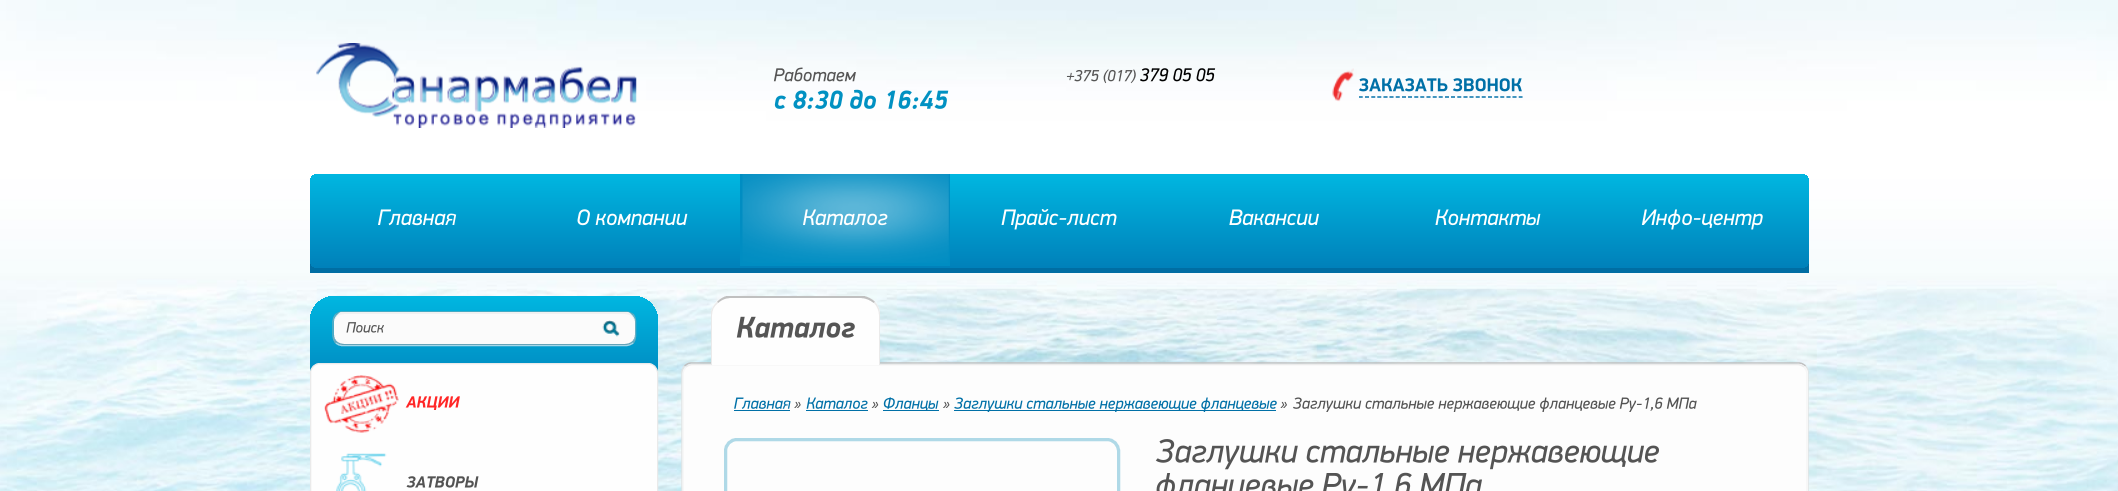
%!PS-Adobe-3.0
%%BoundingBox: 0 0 2118 491
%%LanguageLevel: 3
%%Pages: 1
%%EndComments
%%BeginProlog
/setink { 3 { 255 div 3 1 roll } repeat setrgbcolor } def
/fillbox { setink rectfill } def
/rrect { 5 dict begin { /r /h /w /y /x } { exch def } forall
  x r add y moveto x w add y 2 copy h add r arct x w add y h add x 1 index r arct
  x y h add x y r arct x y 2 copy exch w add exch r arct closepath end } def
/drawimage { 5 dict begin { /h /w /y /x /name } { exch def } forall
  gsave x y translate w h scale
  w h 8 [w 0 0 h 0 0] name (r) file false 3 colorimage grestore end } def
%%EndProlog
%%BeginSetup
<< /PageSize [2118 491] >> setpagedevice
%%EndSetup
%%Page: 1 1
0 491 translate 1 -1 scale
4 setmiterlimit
0 0 2118 491 255 255 255 fillbox
(assets/img1.rgb) 0 0 2118 491 drawimage
(assets/img2.rgb) 316 43 321 85 drawimage
(assets/img3.rgb) 773 67 83 15 drawimage
(assets/img4.rgb) 774 89 175 20 drawimage
(assets/img5.rgb) 1066 69 70 15 drawimage
(assets/img6.rgb) 1140 68 76 14 drawimage
(assets/img7.rgb) 1332 68 22 34 drawimage
(assets/img8.rgb) 1359 78 163 14 drawimage
1 112 168 setink
1.2 setlinewidth
[3.75 2.4] 0 setdash
1359 97 moveto 1522.5 97 lineto stroke
0 110 163 setink
318 174 moveto 1801 174 lineto 1805.5 174 1809 177.5 1809 182 curveto 1809 273 lineto 310 273 lineto 310 182 lineto 310 177.5 313.5 174 318 174 curveto closepath fill
gsave 310 174 1499 94 8 rrect clip newpath
<< /ShadingType 2 /ColorSpace /DeviceRGB /Coords [1059 174 1059 268] /Extend [true true] /Function << /FunctionType 2 /Domain [0 1] /C0 [0 0.718 0.882] /C1 [0 0.506 0.729] /N 1 >> >> shfill grestore
(assets/img9.rgb) 378 209 79 17 drawimage
(assets/img10.rgb) 577 209 111 17 drawimage
740 174 210 92 0 141 194 fillbox
(assets/img11.rgb) 742 174 207 89 drawimage
(assets/img12.rgb) 803 209 85 17 drawimage
(assets/img13.rgb) 1001 209 116 21 drawimage
(assets/img14.rgb) 1229 209 90 17 drawimage
(assets/img15.rgb) 1435 209 106 17 drawimage
(assets/img16.rgb) 1641 209 122 21 drawimage
gsave 310 296 348 100 25 rrect clip newpath
<< /ShadingType 2 /ColorSpace /DeviceRGB /Coords [484 296 484 396] /Extend [true true] /Function << /FunctionType 2 /Domain [0 1] /C0 [0 0.718 0.882] /C1 [0 0.506 0.729] /N 1 >> >> shfill grestore
91 169 189 setink
[] 0 setdash
336 314.5 moveto 337.5 313 340 312 342.5 312 curveto 626 312 lineto 628.5 312 631 313 633 314.5 curveto stroke
102 174 195 setink
633 314.5 moveto 636.5 318.5 635.5 324 635.5 329 curveto 635.5 333.5 636.5 339 633 343 curveto stroke
166 216 233 setink
633 343 moveto 631 344.5 628.5 345.5 626 345.5 curveto 342.5 345.5 lineto 340 345.5 337.5 344.5 336 343 curveto stroke
102 174 195 setink
336 343 moveto 332 339 333 333.5 333 329 curveto 333 324 332 318.5 336 314.5 curveto stroke
251 251 251 setink
334 313 301 32 10 rrect fill
(assets/img17.rgb) 602 320 18 17 drawimage
241 241 241 setink
344 314 moveto 338 314 334 318 334 322 curveto 334 318 337 314 341 312 curveto 628 312 lineto 632 314 635 318 635 322 curveto 635 318 631 314 625 314 curveto closepath fill
102 163 184 setink
625 345 moveto 631 345 635 341 635 335 curveto 635 340 631 344 625 344 curveto 344 344 lineto 338 344 334 340 334 335 curveto 334 341 338 345 344 345 curveto closepath fill
(assets/img18.rgb) 346 322 38 11 drawimage
254 254 254 setink
310.5 363.5 347 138 9.5 rrect gsave fill grestore
234 234 234 setink
1 setlinewidth
stroke
(assets/img19.rgb) 324 375 75 58 drawimage
(assets/img20.rgb) 405 396 55 14 drawimage
(assets/img21.rgb) 336 453 51 38 drawimage
(assets/img22.rgb) 406 476 73 12 drawimage
192 192 192 setink
1.2 setlinewidth
684.5 366 moveto 686.5 364 689 363 691 363 curveto 1799 363 lineto 1801 363 1803.5 364 1805.5 366 curveto stroke
226 228 228 setink
1805.5 366 moveto 1807 367.5 1808 370 1808 372.5 curveto 1808 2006 lineto 1808 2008.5 1807 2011 1805.5 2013 curveto stroke
684.5 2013 moveto 683 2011 682 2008.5 682 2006 curveto 682 372.5 lineto 682 370 683 367.5 684.5 366 curveto stroke
253 253 253 setink
683 364 1125 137 10 rrect fill
236 236 236 setink
686 367 moveto 687.5 365.5 690 364.5 692.5 364.5 curveto 1797.5 364.5 lineto 1800 364.5 1802.5 365.5 1804 367 curveto stroke
254 254 254 setink
730 296 moveto 861 296 lineto 871.5 296 880 304.5 880 315 curveto 880 365 lineto 711 365 lineto 711 315 lineto 711 304.5 719.5 296 730 296 curveto closepath fill
192 192 192 setink
730 298 moveto 725 298 721 300 718 303 curveto 717 302 lineto 720 299 723 297 727 296 curveto 864 296 lineto 868 297 872 299 875 302 curveto 874 303 lineto 870 300 866 298 861 298 curveto closepath fill
234 234 234 setink
879 365 moveto 880 365 lineto 880 315 lineto 880 310 878 305 875 302 curveto 874 303 lineto 877 306 879 310 879 315 curveto closepath fill
711 365 moveto 711 312 lineto 712 308 714 305 717 302 curveto 718 303 lineto 714 306 712 310 712 315 curveto 712 365 lineto closepath fill
(assets/img23.rgb) 736 316 119 22 drawimage
246 246 246 setink
1804 367 moveto 1806 369 1807 371.5 1807 374 curveto 1807 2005 lineto 1807 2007.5 1806 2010 1804 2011.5 curveto stroke
686 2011.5 moveto 684 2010 683 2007.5 683 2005 curveto 683 374 lineto 683 371.5 684 369 686 367 curveto stroke
(assets/img24.rgb) 734 397 57 12 drawimage
(assets/img25.rgb) 794 401 7 7 drawimage
(assets/img26.rgb) 806 397 62 12 drawimage
(assets/img27.rgb) 871 401 8 7 drawimage
(assets/img28.rgb) 883 397 56 13 drawimage
(assets/img29.rgb) 943 401 7 7 drawimage
954 410 322 1 0 112 167 fillbox
(assets/img30.rgb) 954 397 323 15 drawimage
(assets/img31.rgb) 1280 401 7 7 drawimage
(assets/img32.rgb) 1293 397 404 15 drawimage
734 410 56 1 0 112 167 fillbox
806 410 62 1 0 112 167 fillbox
883 410 56 1 0 112 167 fillbox
175 217 231 setink
3 setlinewidth
725.5 439.5 393 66 11.5 rrect stroke
(assets/img33.rgb) 1155 439 504 31 drawimage
(assets/img34.rgb) 1156 472 326 19 drawimage
showpage
%%EOF
